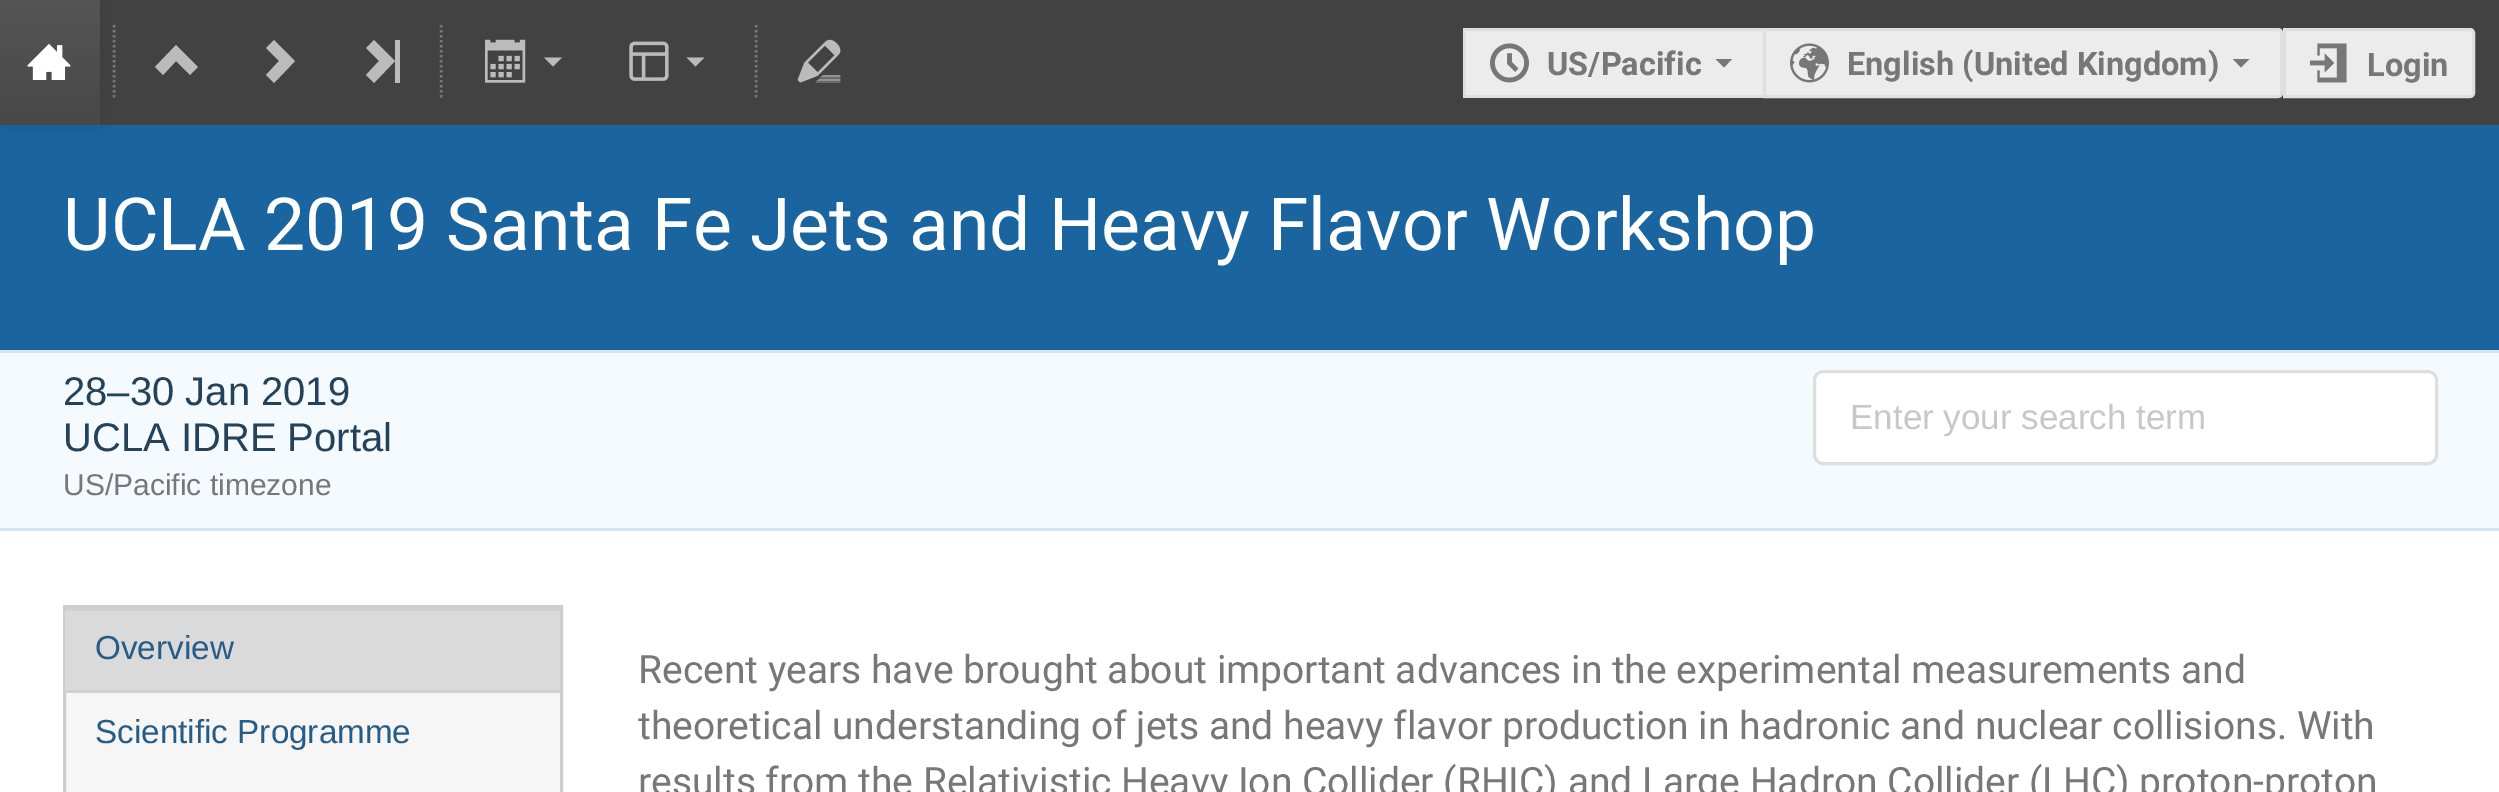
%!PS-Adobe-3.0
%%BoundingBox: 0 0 2499 792
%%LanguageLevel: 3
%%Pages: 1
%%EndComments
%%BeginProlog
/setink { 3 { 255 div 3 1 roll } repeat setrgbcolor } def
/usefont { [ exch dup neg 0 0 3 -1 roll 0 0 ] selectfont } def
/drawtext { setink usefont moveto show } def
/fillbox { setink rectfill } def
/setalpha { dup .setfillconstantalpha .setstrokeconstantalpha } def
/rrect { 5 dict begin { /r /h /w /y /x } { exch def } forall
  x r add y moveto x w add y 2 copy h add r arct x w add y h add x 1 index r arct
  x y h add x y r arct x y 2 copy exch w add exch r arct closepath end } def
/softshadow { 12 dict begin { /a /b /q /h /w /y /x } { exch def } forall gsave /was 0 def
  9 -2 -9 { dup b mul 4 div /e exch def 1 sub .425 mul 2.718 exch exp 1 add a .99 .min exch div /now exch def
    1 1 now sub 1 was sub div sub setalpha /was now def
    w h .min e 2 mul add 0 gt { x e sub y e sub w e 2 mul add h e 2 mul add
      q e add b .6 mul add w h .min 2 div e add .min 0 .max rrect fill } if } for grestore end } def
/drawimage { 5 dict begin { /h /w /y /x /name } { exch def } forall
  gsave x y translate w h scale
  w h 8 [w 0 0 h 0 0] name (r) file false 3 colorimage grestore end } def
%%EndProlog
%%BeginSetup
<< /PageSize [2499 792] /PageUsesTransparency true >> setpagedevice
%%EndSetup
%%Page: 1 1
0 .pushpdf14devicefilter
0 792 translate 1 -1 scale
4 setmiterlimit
0 0 2499 792 255 255 255 fillbox
100 0 2399 125 66 66 66 fillbox
0 125 2499 225 26 100 160 fillbox
20 20 20 setink
3 3 100 125 0 5 0.1 softshadow
gsave 0 0 moveto 100 0 lineto 100 125 lineto 0 125 lineto closepath clip newpath
<< /ShadingType 2 /ColorSpace /DeviceRGB /Coords [50 0 50 125] /Extend [true true] /Function << /FunctionType 2 /Domain [0 1] /C0 [0.333 0.333 0.333] /C1 [0.282 0.282 0.282] /N 1 >> >> shfill grestore
(assets/img1.rgb) 27 43 44 37 drawimage
119 119 119 setink
2.5 setlinewidth
[2.5 2.5] 0 setdash
114 25 moveto 114 100 lineto stroke
187 187 187 setink
155 67 moveto 163 75 lineto 176 61 lineto 190 75 lineto 198 67 lineto 176 45 lineto closepath fill
274 40 moveto 266 48 lineto 279 61 lineto 266 75 lineto 274 83 lineto 295 61 lineto closepath fill
366 75 moveto 374 83 lineto 395 61 lineto 374 40 lineto 366 48 lineto 379 61 lineto closepath 400 83 moveto 400 40 lineto 395 40 lineto 395 83 lineto closepath fill
119 119 119 setink
441 25 moveto 441 100 lineto stroke
(assets/img2.rgb) 485 39 41 44 drawimage
187 187 187 setink
544 57.5 moveto 553 66.5 lineto 562 57.5 lineto closepath fill
(assets/img3.rgb) 629 41 40 40 drawimage
686.5 57.5 moveto 695.5 66.5 lineto 704.5 57.5 lineto closepath fill
119 119 119 setink
756 25 moveto 756 100 lineto stroke
(assets/img4.rgb) 797 39 44 44 drawimage
1466 31 297 64 236 236 236 fillbox
1463 28 300 3 223 223 223 fillbox
1463 95 300 3 223 223 223 fillbox
1463 28 3 70 223 223 223 fillbox
(assets/img5.rgb) 1490 43 39 40 drawimage
(US/Pacific) 1547 75 /Roboto-Bold 32.5 119 119 119 drawtext
1715.5 59 moveto 1724 67.5 lineto 1732 59 lineto closepath fill
236 236 236 setink
1764.5 29.5 moveto 2278 29.5 lineto 2280 29.5 2281.5 31 2281.5 33 curveto 2281.5 93 lineto 2281.5 95 2280 96.5 2278 96.5 curveto 1764.5 96.5 lineto closepath gsave fill grestore
223 223 223 setink
3 setlinewidth
[] 0 setdash
stroke
(assets/img6.rgb) 1790 43 39 40 drawimage
(English \(United Kingdom\)) 1847 75 /Roboto-Bold 32.5 119 119 119 drawtext
2233 59 moveto 2241 67.5 lineto 2249.5 59 lineto closepath fill
236 236 236 setink
2284.5 29.5 moveto 2470 29.5 lineto 2472 29.5 2473.5 31 2473.5 33 curveto 2473.5 93 lineto 2473.5 95 2472 96.5 2470 96.5 curveto 2284.5 96.5 lineto closepath gsave fill grestore
223 223 223 setink
stroke
(assets/img7.rgb) 2310 43 37 40 drawimage
(Login) 2367 76 /Roboto-Bold 32.5 119 119 119 drawtext
(UCLA 2019 Santa Fe Jets and Heavy Flavor Workshop) 63 250 /Roboto-Regular 73.3 255 255 255 drawtext
0 353 2499 175 245 250 255 fillbox
0 350 2499 3 213 228 241 fillbox
0 528 2499 3 213 228 241 fillbox
(28–30 Jan 2019) 63 405 /LiberationSans-Regular 40 36 66 90 drawtext
(UCLA IDRE Portal) 63 451 /LiberationSans-Regular 40 36 66 90 drawtext
(US/Pacific timezone) 63 495 /LiberationSans-Regular 30 119 119 119 drawtext
255 255 255 setink
1813 370 625 95 10 rrect fill
0.15 setalpha
34 36 38 setink
1814.5 371.5 622 92 8.5 rrect stroke
1 setalpha
(Enter your search term) 1850 429 /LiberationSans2-Regular 35 199 199 199 drawtext
66 693 494 99 246 246 246 fillbox
204 204 204 setink
64.5 606.5 497 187 rectstroke
65 611 495 79 218 218 218 fillbox
65 608 495 3 208 208 208 fillbox
65 690 495 3 208 208 208 fillbox
(Overview) 95 659 /LiberationSans2-Regular 33.25 39 92 134 drawtext
(Scientific Programme) 95 743 /LiberationSans2-Regular 33.25 39 92 134 drawtext
(Recent years have brought about important advances in the experimental measurements and) 638 683 /Roboto-Regular 39 119 119 119 drawtext
(theoretical understanding of jets and heavy flavor production in hadronic and nuclear collisions. With) 638 739 /Roboto-Regular 39 119 119 119 drawtext
(results from the Relativistic Heavy Ion Collider \(RHIC\) and Large Hadron Collider \(LHC\) proton-proton) 638 795 /Roboto-Regular 39 119 119 119 drawtext
.poppdf14devicefilter showpage
%%EOF
